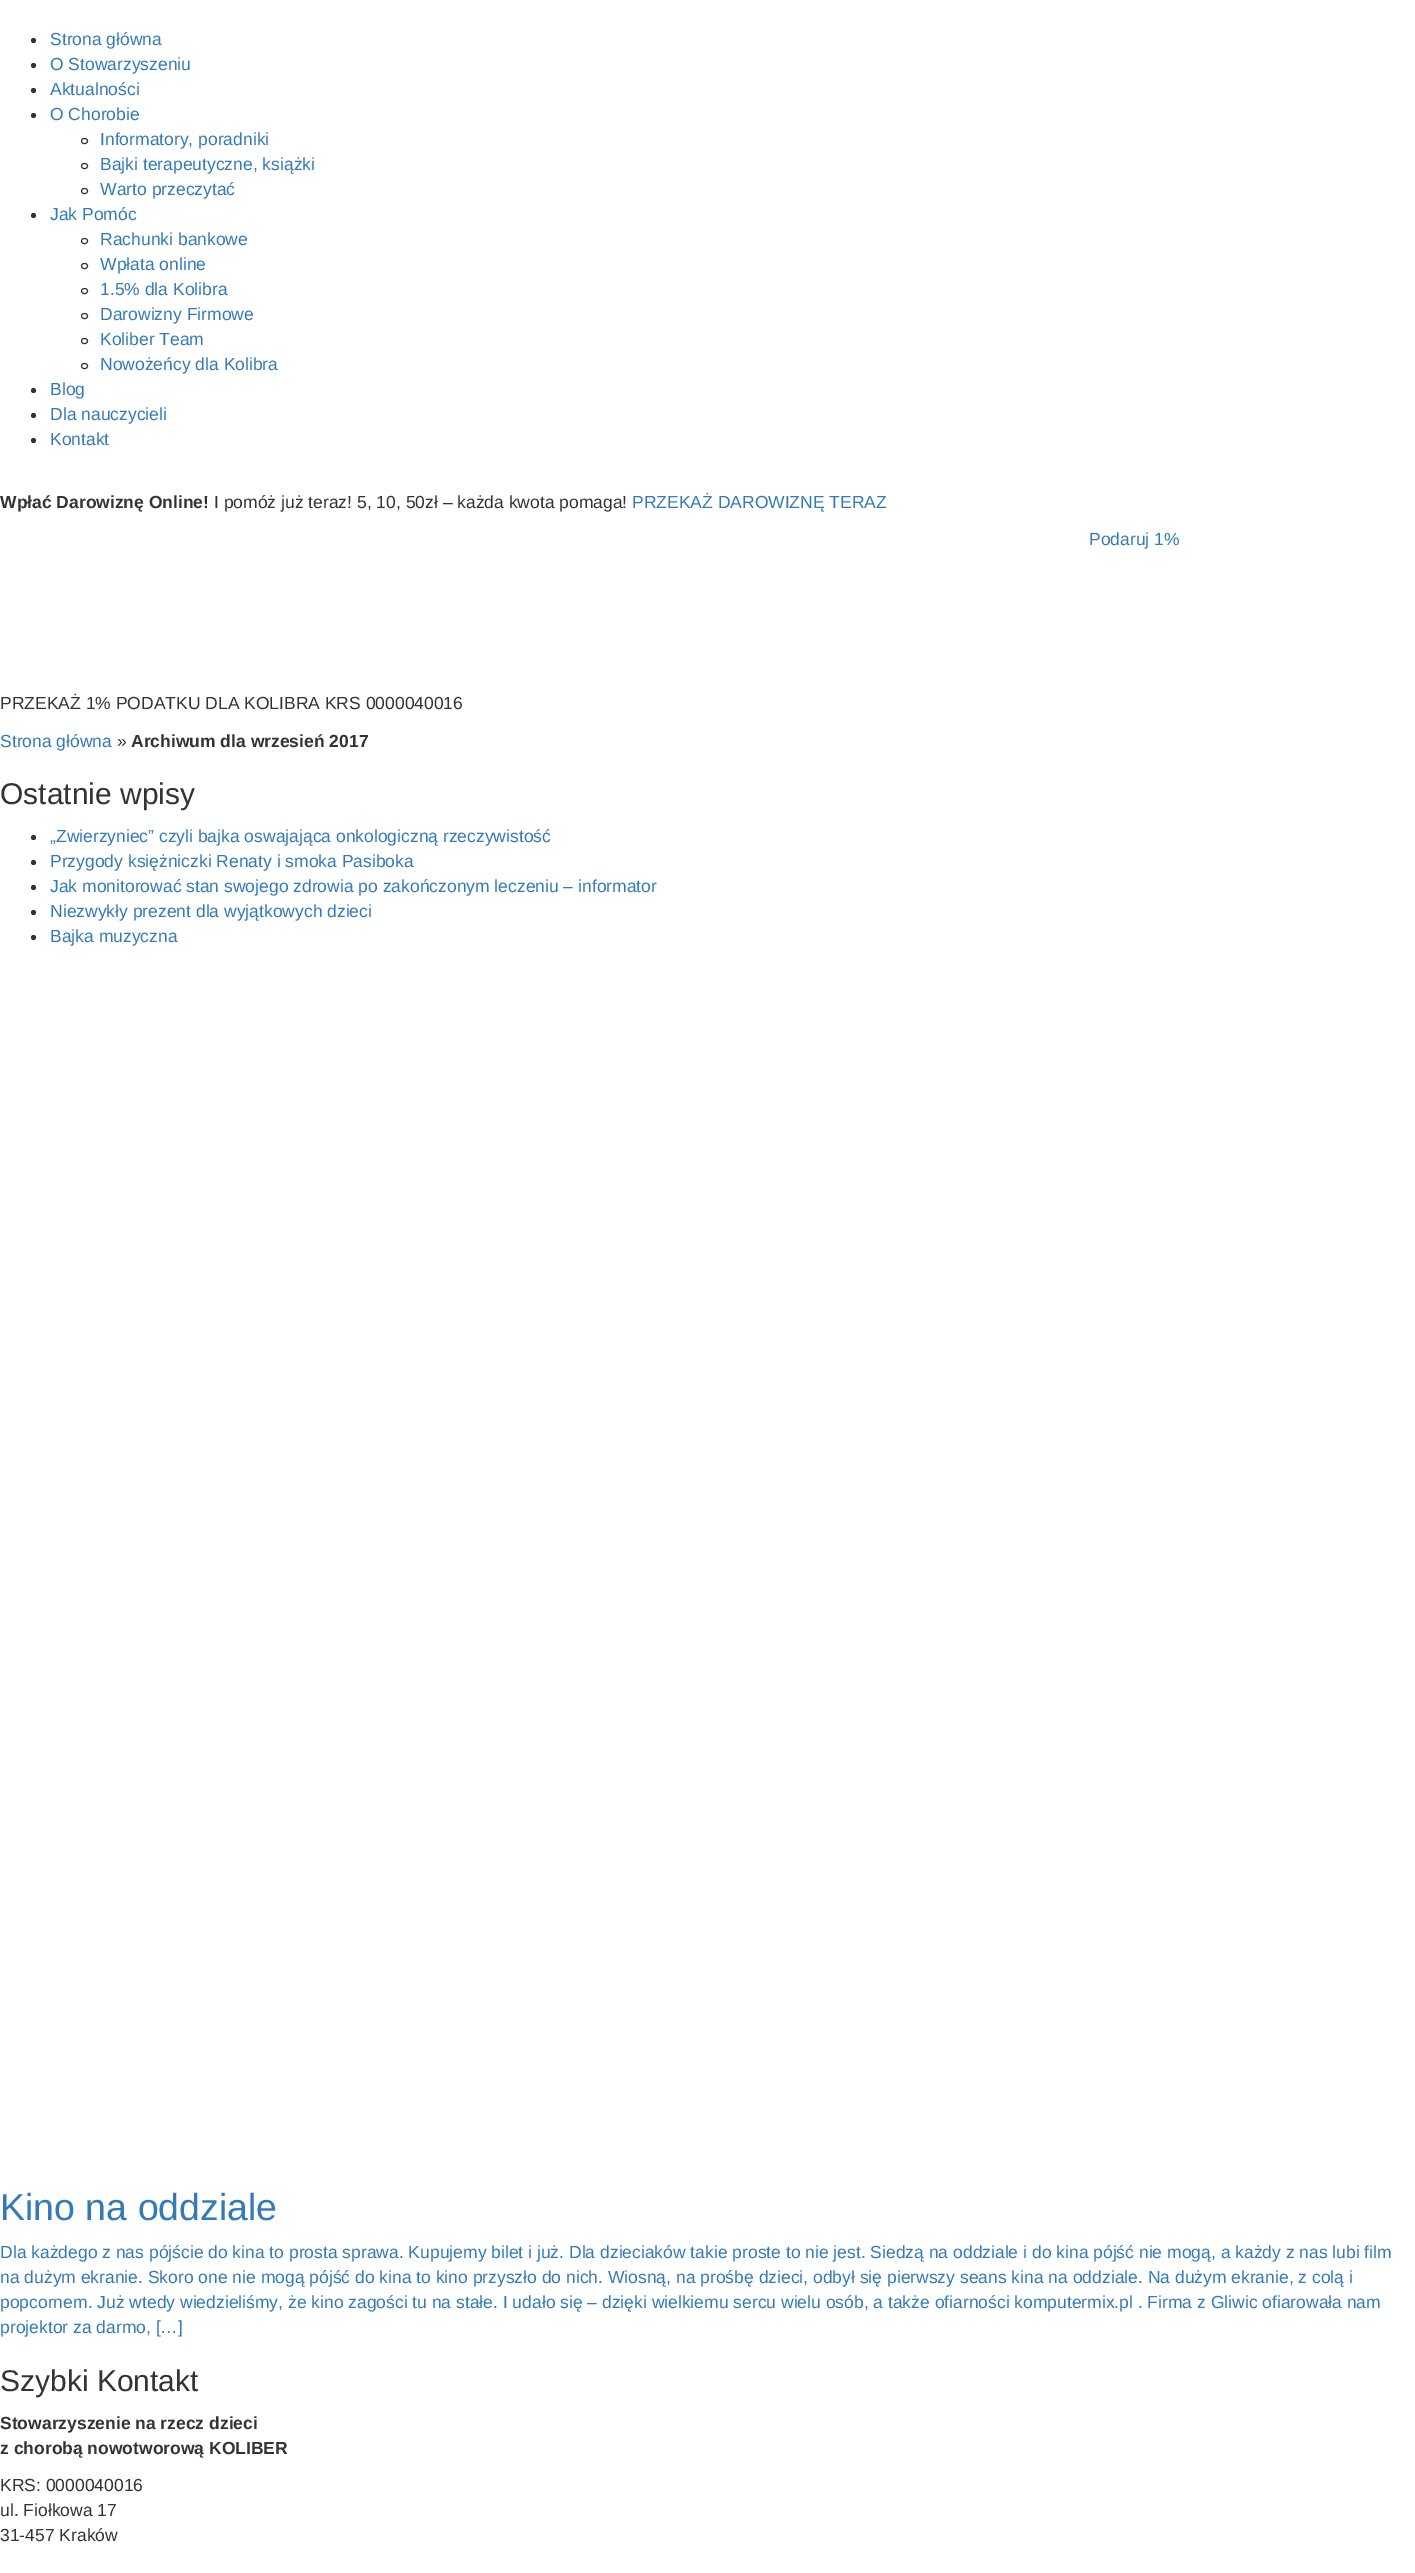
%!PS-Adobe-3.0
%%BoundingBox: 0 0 1415 2573
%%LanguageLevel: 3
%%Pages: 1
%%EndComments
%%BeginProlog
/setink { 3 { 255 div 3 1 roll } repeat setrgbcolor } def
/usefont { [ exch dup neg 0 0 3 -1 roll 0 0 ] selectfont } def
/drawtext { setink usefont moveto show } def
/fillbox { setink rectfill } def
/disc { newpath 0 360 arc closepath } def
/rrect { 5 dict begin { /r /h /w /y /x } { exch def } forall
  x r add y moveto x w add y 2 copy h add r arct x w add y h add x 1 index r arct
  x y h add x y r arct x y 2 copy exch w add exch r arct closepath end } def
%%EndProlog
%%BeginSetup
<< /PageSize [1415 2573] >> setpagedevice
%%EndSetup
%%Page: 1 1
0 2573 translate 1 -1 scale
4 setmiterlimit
0 0 1415 2573 255 255 255 fillbox
51 51 51 setink
33.5 40.5 2.5 disc fill
(Strona główna) 50 45 /LiberationSans-Regular 17.5 51 122 183 drawtext
51 51 51 setink
33.5 65.5 2.5 disc fill
(O Stowarzyszeniu) 50 70 /LiberationSans-Regular 17.5 51 122 183 drawtext
51 51 51 setink
33.5 90.5 2.5 disc fill
(Aktualności) 50 95 /LiberationSans-Regular 17.5 51 122 183 drawtext
51 51 51 setink
33.5 115.5 2.5 disc fill
(O Chorobie) 50 120 /LiberationSans-Regular 17.5 51 122 183 drawtext
51 51 51 setink
81.5 138.5 6 5 2.5 rrect stroke
(Informatory, poradniki) 100 145 /LiberationSans-Regular 17.5 51 122 183 drawtext
51 51 51 setink
81.5 163.5 6 5 2.5 rrect stroke
(Bajki terapeutyczne, książki) 100 170 /LiberationSans-Regular 17.5 51 122 183 drawtext
51 51 51 setink
81.5 188.5 6 5 2.5 rrect stroke
(Warto przeczytać) 100 195 /LiberationSans-Regular 17.5 51 122 183 drawtext
51 51 51 setink
33.5 215.5 2.5 disc fill
(Jak Pomóc) 50 220 /LiberationSans-Regular 17.5 51 122 183 drawtext
51 51 51 setink
81.5 238.5 6 5 2.5 rrect stroke
(Rachunki bankowe) 100 245 /LiberationSans-Regular 17.5 51 122 183 drawtext
51 51 51 setink
81.5 263.5 6 5 2.5 rrect stroke
(Wpłata online) 100 270 /LiberationSans-Regular 17.5 51 122 183 drawtext
51 51 51 setink
81.5 288.5 6 5 2.5 rrect stroke
(1.5% dla Kolibra) 100 295 /LiberationSans-Regular 17.5 51 122 183 drawtext
51 51 51 setink
81.5 313.5 6 5 2.5 rrect stroke
(Darowizny Firmowe) 100 320 /LiberationSans-Regular 17.5 51 122 183 drawtext
51 51 51 setink
81.5 338.5 6 5 2.5 rrect stroke
(Koliber Team) 100 345 /LiberationSans-Regular 17.5 51 122 183 drawtext
51 51 51 setink
81.5 363.5 6 5 2.5 rrect stroke
(Nowożeńcy dla Kolibra) 100 370 /LiberationSans-Regular 17.5 51 122 183 drawtext
51 51 51 setink
33.5 390.5 2.5 disc fill
(Blog) 50 395 /LiberationSans-Regular 17.5 51 122 183 drawtext
51 51 51 setink
33.5 415.5 2.5 disc fill
(Dla nauczycieli) 50 420 /LiberationSans-Regular 17.5 51 122 183 drawtext
51 51 51 setink
33.5 440.5 2.5 disc fill
(Kontakt) 50 445 /LiberationSans-Regular 17.5 51 122 183 drawtext
(Wpłać Darowiznę Online!) 0 508 /LiberationSans-Bold 17.5 51 51 51 drawtext
(I pomóż już teraz! 5, 10, 50zł – każda kwota pomaga!) 214 508 /LiberationSans-Regular 17.5 51 51 51 drawtext
(PRZEKAŻ DAROWIZNĘ TERAZ) 632 508 /LiberationSans-Regular 17.5 51 122 183 drawtext
(Podaruj 1%) 1089 545 /LiberationSans-Regular 17.5 51 122 183 drawtext
(PRZEKAŻ 1% PODATKU DLA KOLIBRA KRS 0000040016) 0 709 /LiberationSans-Regular 17.5 51 51 51 drawtext
(Strona główna) 0 747 /LiberationSans-Regular 17.5 51 122 183 drawtext
(») 117 747 /LiberationSans-Regular 17.5 51 51 51 drawtext
(Archiwum dla wrzesień 2017) 131 747 /LiberationSans-Bold 17.5 51 51 51 drawtext
(Ostatnie wpisy) 0 804 /LiberationSans-Regular 30 51 51 51 drawtext
33.5 837.5 2.5 disc fill
(„Zwierzyniec” czyli bajka oswajająca onkologiczną rzeczywistość) 50 842 /LiberationSans-Regular 17.5 51 122 183 drawtext
51 51 51 setink
33.5 862.5 2.5 disc fill
(Przygody księżniczki Renaty i smoka Pasiboka) 50 867 /LiberationSans-Regular 17.5 51 122 183 drawtext
51 51 51 setink
33.5 887.5 2.5 disc fill
(Jak monitorować stan swojego zdrowia po zakończonym leczeniu – informator) 50 892 /LiberationSans-Regular 17.5 51 122 183 drawtext
51 51 51 setink
33.5 912.5 2.5 disc fill
(Niezwykły prezent dla wyjątkowych dzieci) 50 917 /LiberationSans-Regular 17.5 51 122 183 drawtext
51 51 51 setink
33.5 937.5 2.5 disc fill
(Bajka muzyczna) 50 942 /LiberationSans-Regular 17.5 51 122 183 drawtext
(Kino na oddziale) 0 2220 /LiberationSans-Regular 37.5 51 122 183 drawtext
(Dla każdego z nas pójście do kina to prosta sprawa. Kupujemy bilet i już. Dla dzieciaków takie proste to nie jest. Siedzą na oddziale i do kina pójść nie mogą, a każdy z nas lubi film) 0 2258 /LiberationSans-Regular 17.5 51 122 183 drawtext
(na dużym ekranie. Skoro one nie mogą pójść do kina to kino przyszło do nich. Wiosną, na prośbę dzieci, odbył się pierwszy seans kina na oddziale. Na dużym ekranie, z colą i) 0 2283 /LiberationSans-Regular 17.5 51 122 183 drawtext
(popcornem. Już wtedy wiedzieliśmy, że kino zagości tu na stałe. I udało się – dzięki wielkiemu sercu wielu osób, a także ofiarności komputermix.pl . Firma z Gliwic ofiarowała nam) 0 2308 /LiberationSans-Regular 17.5 51 122 183 drawtext
(projektor za darmo, […]) 0 2333 /LiberationSans-Regular 17.5 51 122 183 drawtext
(Szybki Kontakt) 0 2391 /LiberationSans-Regular 30 51 51 51 drawtext
(Stowarzyszenie na rzecz dzieci) 0 2429 /LiberationSans-Bold 17.5 51 51 51 drawtext
(z chorobą nowotworową KOLIBER) 0 2454 /LiberationSans-Bold 17.5 51 51 51 drawtext
(KRS: 0000040016) 0 2491 /LiberationSans-Regular 17.5 51 51 51 drawtext
(ul. Fiołkowa 17) 0 2516 /LiberationSans-Regular 17.5 51 51 51 drawtext
(31-457 Kraków) 0 2541 /LiberationSans-Regular 17.5 51 51 51 drawtext
showpage
%%EOF
